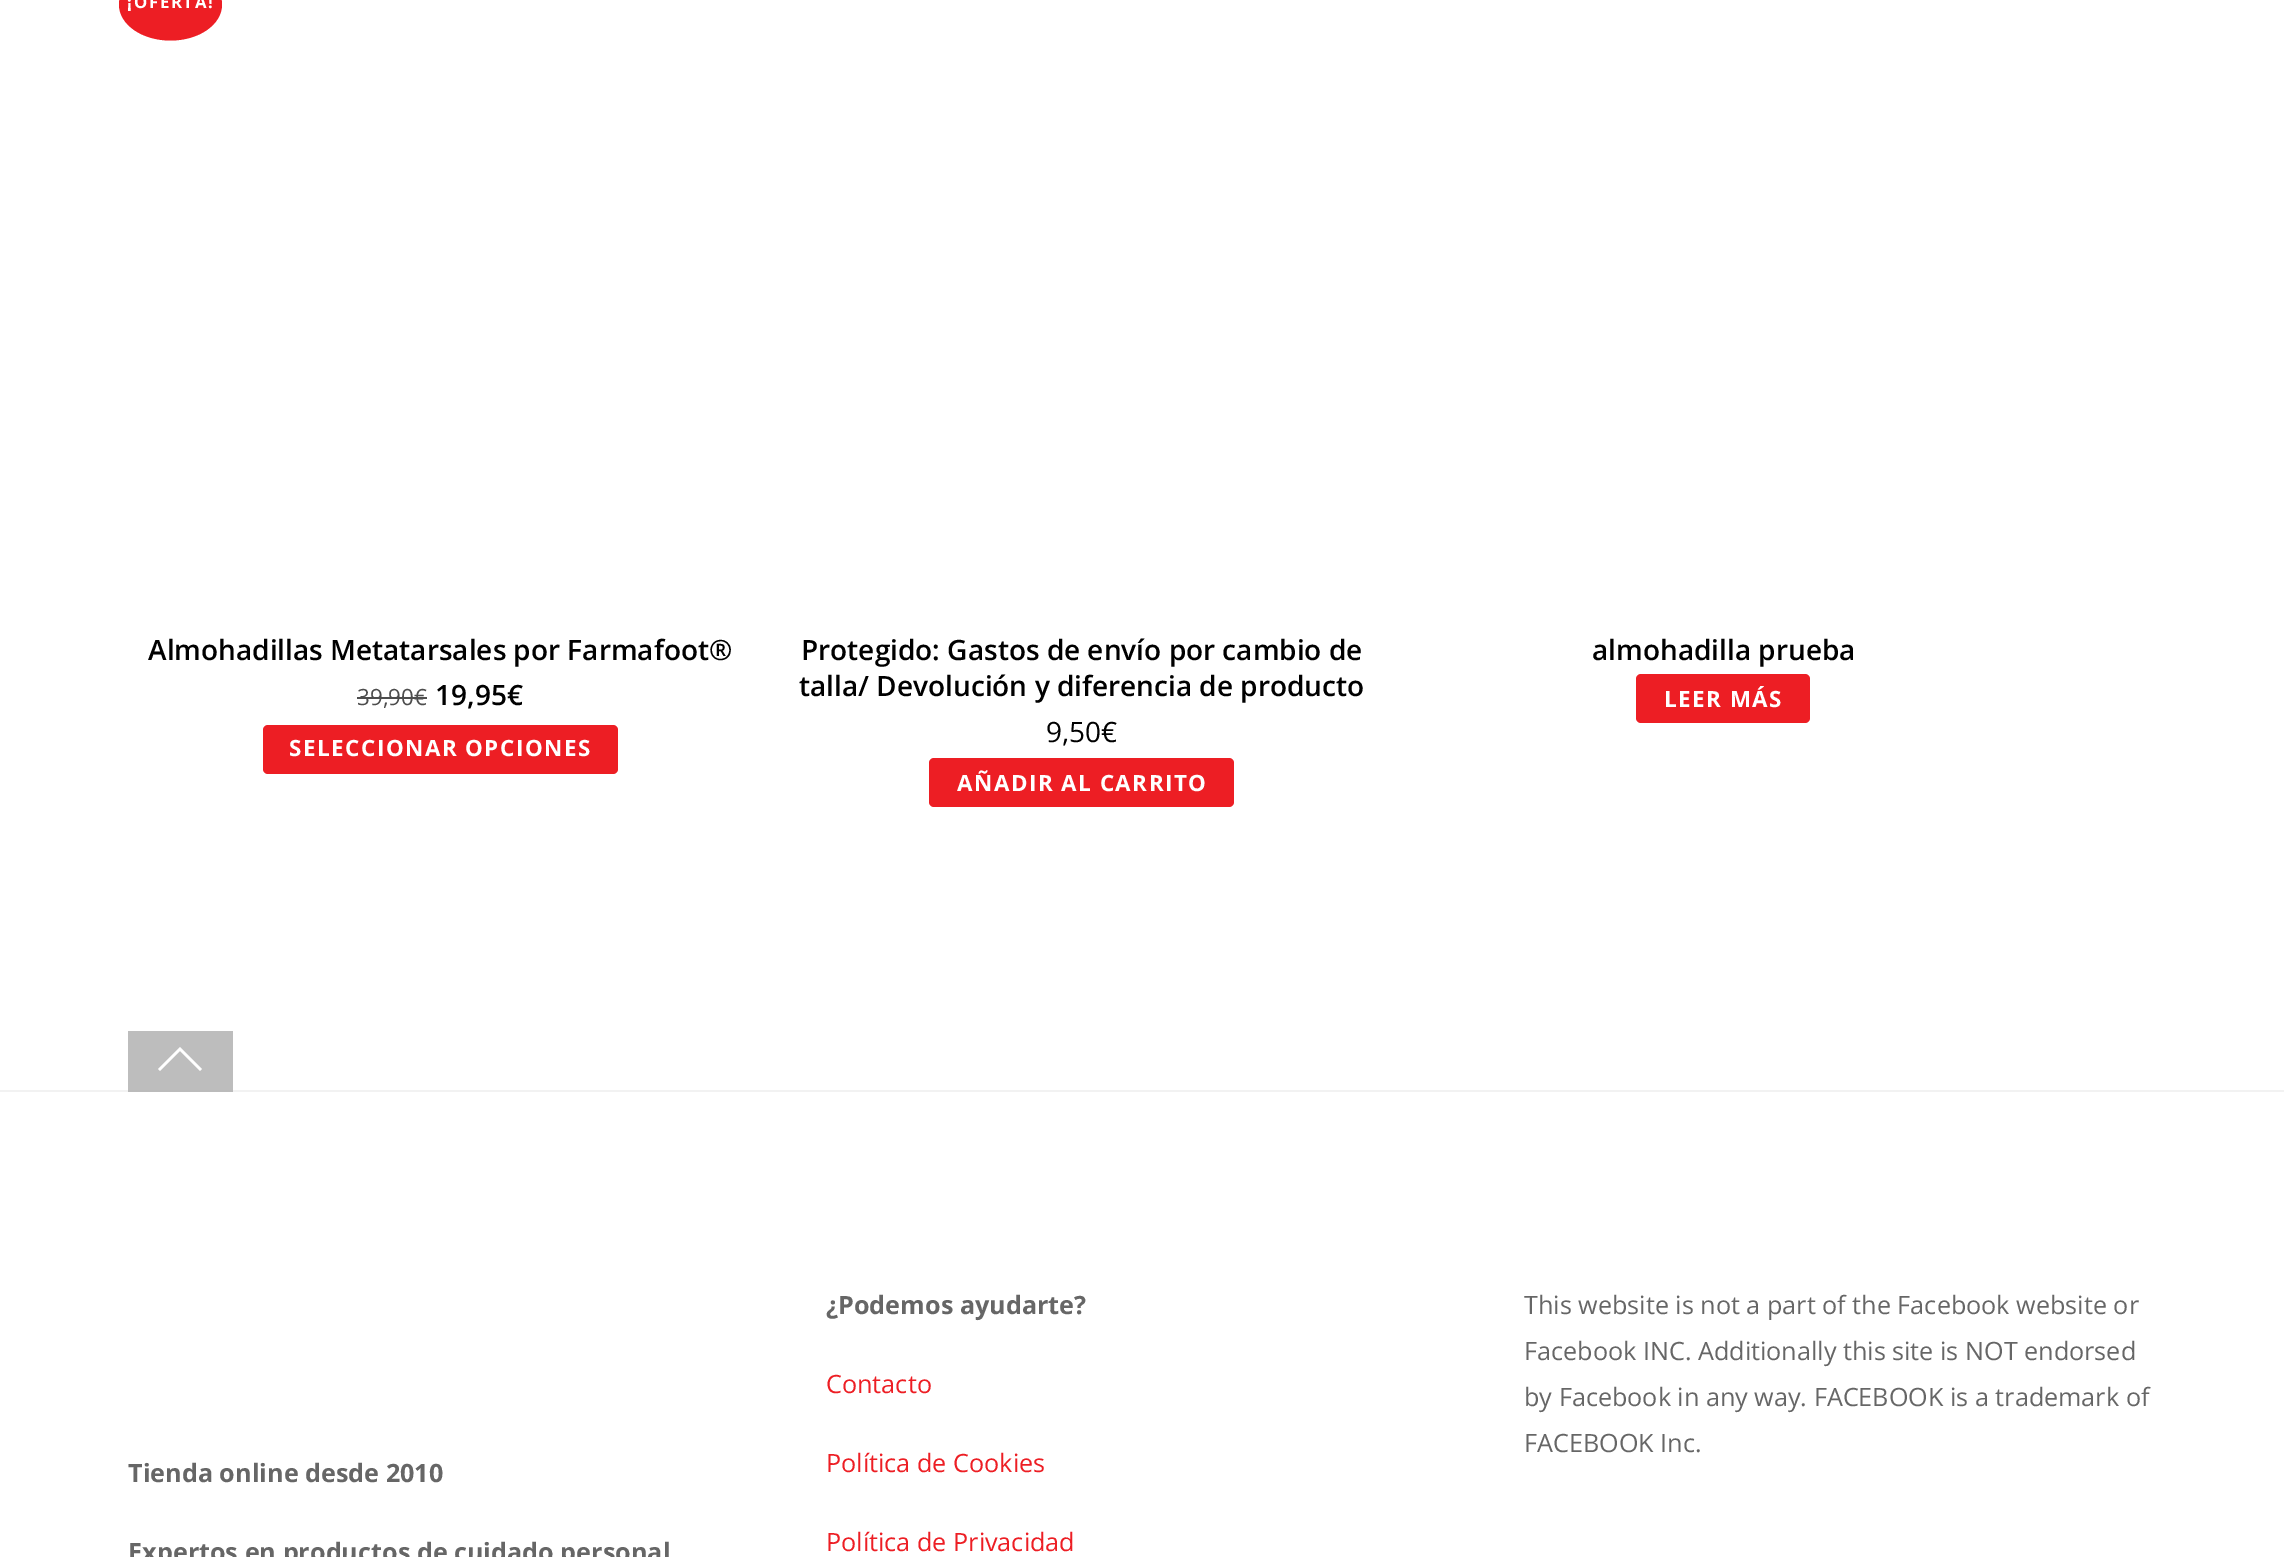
%!PS-Adobe-3.0
%%BoundingBox: 0 0 2284 1557
%%LanguageLevel: 3
%%Pages: 1
%%EndComments
%%BeginProlog
/setink { 3 { 255 div 3 1 roll } repeat setrgbcolor } def
/usefont { [ exch dup neg 0 0 3 -1 roll 0 0 ] selectfont } def
/drawtext { setink usefont moveto show } def
/fillbox { setink rectfill } def
/rrect { 5 dict begin { /r /h /w /y /x } { exch def } forall
  x r add y moveto x w add y 2 copy h add r arct x w add y h add x 1 index r arct
  x y h add x y r arct x y 2 copy exch w add exch r arct closepath end } def
%%EndProlog
%%BeginSetup
<< /PageSize [2284 1557] >> setpagedevice
%%EndSetup
%%Page: 1 1
0 1557 translate 1 -1 scale
4 setmiterlimit
0 0 2284 1557 255 255 255 fillbox
128 1031 105 59 189 189 189 fillbox
237 30 36 setink
170.5 -31.5 moveto 199 -31.5 222 -15.5 222 4.5 curveto 222 24.5 199 40.5 170.5 40.5 curveto 142 40.5 119 24.5 119 4.5 curveto 119 -15.5 142 -31.5 170.5 -31.5 curveto closepath fill
/OpenSans-Bold 16.75 usefont
255 255 255 setink
127 8 moveto 1.75 0 (¡OFERTA!) ashow
(Almohadillas Metatarsales por Farmafoot®) 148 660 /OpenSans-SemiBold 28 0 0 0 drawtext
(39,90€) 357 705 /OpenSans-Regular 22.4 77 77 77 drawtext
357 697 70 2 77 77 77 fillbox
(19,95€) 435 705 /OpenSans-SemiBold 28 0 0 0 drawtext
237 30 36 setink
263 725 355 49 5 rrect fill
/OpenSans-Bold 22.4 usefont
255 255 255 setink
289 756 moveto 1.5 0 (SELECCIONAR OPCIONES) ashow
(Protegido: Gastos de envío por cambio de) 801 660 /OpenSans-SemiBold 28 0 0 0 drawtext
(talla/ Devolución y diferencia de producto) 799 696 /OpenSans-SemiBold 28 0 0 0 drawtext
(9,50€) 1046 742 /OpenSans-Regular 28 0 0 0 drawtext
237 30 36 setink
929 758 305 49 5 rrect fill
/OpenSans-Bold 22.4 usefont
255 255 255 setink
957 791 moveto 1.5 0 (AÑADIR AL CARRITO) ashow
(almohadilla prueba) 1592 660 /OpenSans-SemiBold 28 0 0 0 drawtext
237 30 36 setink
1636 674 174 49 5 rrect fill
/OpenSans-Bold 22.4 usefont
255 255 255 setink
1664 707 moveto 1.5 0 (LEER MÁS) ashow
0 1090 2284 2 242 242 242 fillbox
128 1090 105 2 187 187 187 fillbox
255 255 255 setink
202 1069 moveto 200 1071 lineto 180 1051 lineto 160 1071 lineto 158 1069 lineto 180 1047 lineto closepath fill
(¿Podemos ayudarte?) 826 1314 /OpenSans-Bold 25.2 102 102 102 drawtext
(Contacto) 826 1393 /OpenSans-Regular 25.2 237 30 36 drawtext
(Política de Cookies) 826 1472 /OpenSans-Regular 25.2 237 30 36 drawtext
(Política de Privacidad) 826 1551 /OpenSans-Regular 25.2 237 30 36 drawtext
(This website is not a part of the Facebook website or) 1524 1314 /OpenSans-Regular 25.2 102 102 102 drawtext
(Facebook INC. Additionally this site is NOT endorsed) 1524 1360 /OpenSans-Regular 25.2 102 102 102 drawtext
(by Facebook in any way. FACEBOOK is a trademark of) 1524 1406 /OpenSans-Regular 25.2 102 102 102 drawtext
(FACEBOOK Inc.) 1524 1452 /OpenSans-Regular 25.2 102 102 102 drawtext
(Tienda online desde 2010) 128 1482 /OpenSans-Bold 25.2 102 102 102 drawtext
(Expertos en productos de cuidado personal) 128 1561 /OpenSans-Bold 25.2 102 102 102 drawtext
showpage
%%EOF
